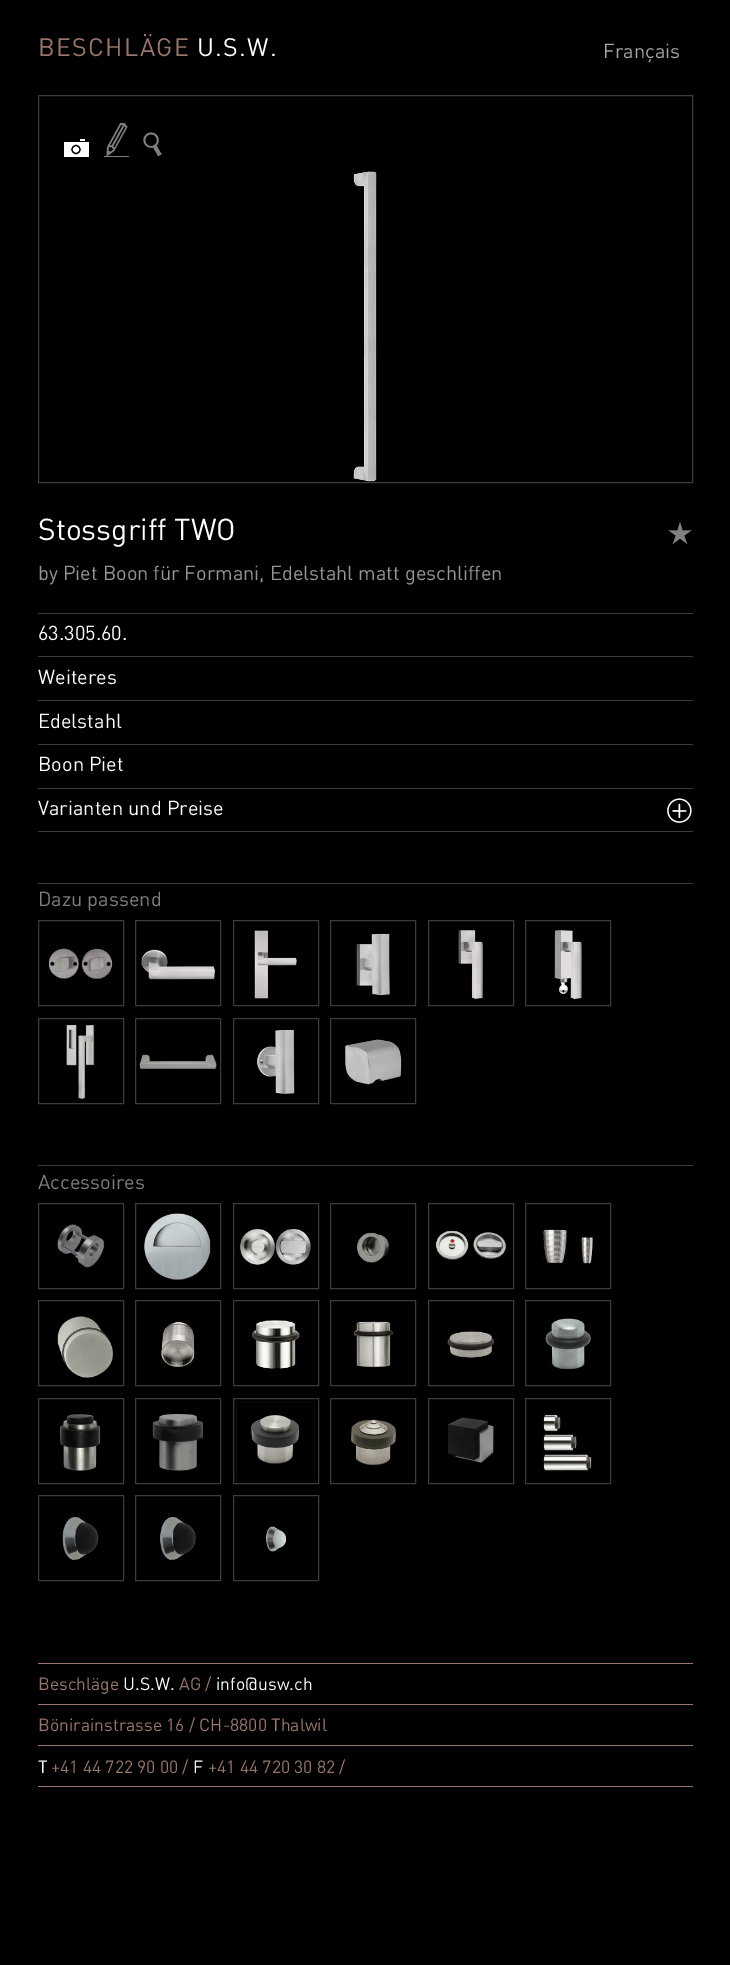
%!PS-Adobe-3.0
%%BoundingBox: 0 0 730 1965
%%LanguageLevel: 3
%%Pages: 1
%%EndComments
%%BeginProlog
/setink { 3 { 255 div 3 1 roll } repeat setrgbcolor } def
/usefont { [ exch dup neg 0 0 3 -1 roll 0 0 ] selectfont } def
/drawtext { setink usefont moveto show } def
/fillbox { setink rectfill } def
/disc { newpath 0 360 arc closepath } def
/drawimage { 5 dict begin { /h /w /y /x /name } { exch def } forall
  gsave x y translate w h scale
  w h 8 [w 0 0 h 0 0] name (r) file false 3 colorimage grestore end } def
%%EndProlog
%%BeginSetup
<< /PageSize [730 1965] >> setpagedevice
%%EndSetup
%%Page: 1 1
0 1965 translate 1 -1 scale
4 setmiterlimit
0 0 730 1965 0 0 0 fillbox
/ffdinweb-Regular 25 usefont
152 118 106 setink
38 56 moveto 1.25 0 (BESCHLÄGE) ashow
255 255 255 setink
197 56 moveto 1.25 0 (U.S.W.) ashow
(Français) 603 58 /ffdinweb-Regular 20 164 164 162 drawtext
60 60 60 setink
38.5 95.5 654 387 rectstroke
64 142 25 15 255 255 255 fillbox
80 139 5 2 255 255 255 fillbox
0 0 0 setink
1.2 setlinewidth
76 149.5 4 disc stroke
(assets/img1.rgb) 104 122 25 35 drawimage
(assets/img2.rgb) 143 132 19 25 drawimage
(assets/img3.rgb) 353 171 24 311 drawimage
(Stossgriff TWO) 38 540 /ffdinweb-Regular 30 255 255 255 drawtext
(assets/img4.rgb) 668 522 24 23 drawimage
(by Piet Boon für Formani, Edelstahl matt geschliffen) 38 580 /ffdinweb-Regular 20 150 150 150 drawtext
38 613 655 1 60 60 60 fillbox
(63.305.60.) 38 640 /ffdinweb-Regular 20 255 255 255 drawtext
38 656 655 1 60 60 60 fillbox
(Weiteres) 38 684 /ffdinweb-Regular 20 255 255 255 drawtext
38 700 655 1 60 60 60 fillbox
(Edelstahl) 38 728 /ffdinweb-Regular 20 255 255 255 drawtext
38 744 655 1 60 60 60 fillbox
(Boon Piet) 38 771 /ffdinweb-Regular 20 255 255 255 drawtext
38 788 655 1 60 60 60 fillbox
38 831 655 1 60 60 60 fillbox
(Varianten und Preise) 38 815 /ffdinweb-Regular 20 255 255 255 drawtext
(assets/img5.rgb) 667 798 25 25 drawimage
38 883 655 1 60 60 60 fillbox
(Dazu passend) 38 906 /ffdinweb-Regular 20 127 127 127 drawtext
60 60 60 setink
1 setlinewidth
38.5 920.5 85 85 rectstroke
(assets/img6.rgb) 48 945 65 35 drawimage
135.5 920.5 85 85 rectstroke
(assets/img7.rgb) 141 949 74 31 drawimage
233.5 920.5 85 85 rectstroke
(assets/img8.rgb) 254 930 43 69 drawimage
330.5 920.5 85 85 rectstroke
(assets/img9.rgb) 356 933 34 63 drawimage
428.5 920.5 85 85 rectstroke
(assets/img10.rgb) 458 930 25 70 drawimage
525.5 920.5 85 85 rectstroke
(assets/img11.rgb) 554 930 28 69 drawimage
38.5 1018.5 85 85 rectstroke
(assets/img12.rgb) 66 1023 29 76 drawimage
135.5 1018.5 85 85 rectstroke
(assets/img13.rgb) 139 1053 78 18 drawimage
233.5 1018.5 85 85 rectstroke
(assets/img14.rgb) 257 1029 38 65 drawimage
330.5 1018.5 85 85 rectstroke
(assets/img15.rgb) 343 1039 59 46 drawimage
38 1165 655 1 60 60 60 fillbox
(Accessoires) 38 1189 /ffdinweb-Regular 20 127 127 127 drawtext
60 60 60 setink
38.5 1203.5 85 85 rectstroke
(assets/img16.rgb) 57 1223 48 45 drawimage
135.5 1203.5 85 85 rectstroke
(assets/img17.rgb) 144 1213 67 68 drawimage
233.5 1203.5 85 85 rectstroke
(assets/img18.rgb) 238 1228 73 39 drawimage
330.5 1203.5 85 85 rectstroke
(assets/img19.rgb) 355 1232 34 31 drawimage
428.5 1203.5 85 85 rectstroke
(assets/img20.rgb) 435 1230 71 30 drawimage
525.5 1203.5 85 85 rectstroke
(assets/img21.rgb) 542 1229 53 36 drawimage
38.5 1300.5 85 85 rectstroke
(assets/img22.rgb) 57 1315 56 64 drawimage
135.5 1300.5 85 85 rectstroke
(assets/img23.rgb) 161 1320 35 47 drawimage
233.5 1300.5 85 85 rectstroke
(assets/img24.rgb) 252 1319 51 51 drawimage
330.5 1300.5 85 85 rectstroke
(assets/img25.rgb) 351 1321 44 46 drawimage
428.5 1300.5 85 85 rectstroke
(assets/img26.rgb) 446 1328 52 30 drawimage
525.5 1300.5 85 85 rectstroke
(assets/img27.rgb) 544 1317 50 53 drawimage
38.5 1398.5 85 85 rectstroke
(assets/img28.rgb) 60 1413 41 59 drawimage
135.5 1398.5 85 85 rectstroke
(assets/img29.rgb) 152 1413 51 59 drawimage
233.5 1398.5 85 85 rectstroke
(assets/img30.rgb) 236 1402 79 80 drawimage
330.5 1398.5 85 85 rectstroke
(assets/img31.rgb) 348 1416 48 52 drawimage
428.5 1398.5 85 85 rectstroke
(assets/img32.rgb) 447 1417 50 46 drawimage
525.5 1398.5 85 85 rectstroke
(assets/img33.rgb) 542 1411 50 62 drawimage
38.5 1495.5 85 85 rectstroke
(assets/img34.rgb) 62 1515 37 45 drawimage
135.5 1495.5 85 85 rectstroke
(assets/img35.rgb) 159 1517 37 43 drawimage
233.5 1495.5 85 85 rectstroke
(assets/img36.rgb) 265 1526 22 27 drawimage
38 1663 655 1 152 118 106 fillbox
38 1704 655 1 152 118 106 fillbox
(Beschläge) 38 1690 /ffdinweb-Regular 17.5 152 118 106 drawtext
(U.S.W.) 123 1690 /ffdinweb-Regular 17.5 255 255 255 drawtext
(AG /) 179 1690 /ffdinweb-Regular 17.5 152 118 106 drawtext
(info@usw.ch) 216 1690 /ffdinweb-Regular 17.5 255 255 255 drawtext
38 1745 655 1 152 118 106 fillbox
(Bönirainstrasse 16 / CH-8800 Thalwil) 38 1731 /ffdinweb-Regular 17.5 152 118 106 drawtext
38 1786 655 1 152 118 106 fillbox
(T) 38 1773 /ffdinweb-Regular 17.5 255 255 255 drawtext
(+41 44 722 90 00 /) 51 1773 /ffdinweb-Regular 17.5 152 118 106 drawtext
(F) 193 1773 /ffdinweb-Regular 17.5 255 255 255 drawtext
(+41 44 720 30 82 /) 208 1773 /ffdinweb-Regular 17.5 152 118 106 drawtext
showpage
%%EOF
